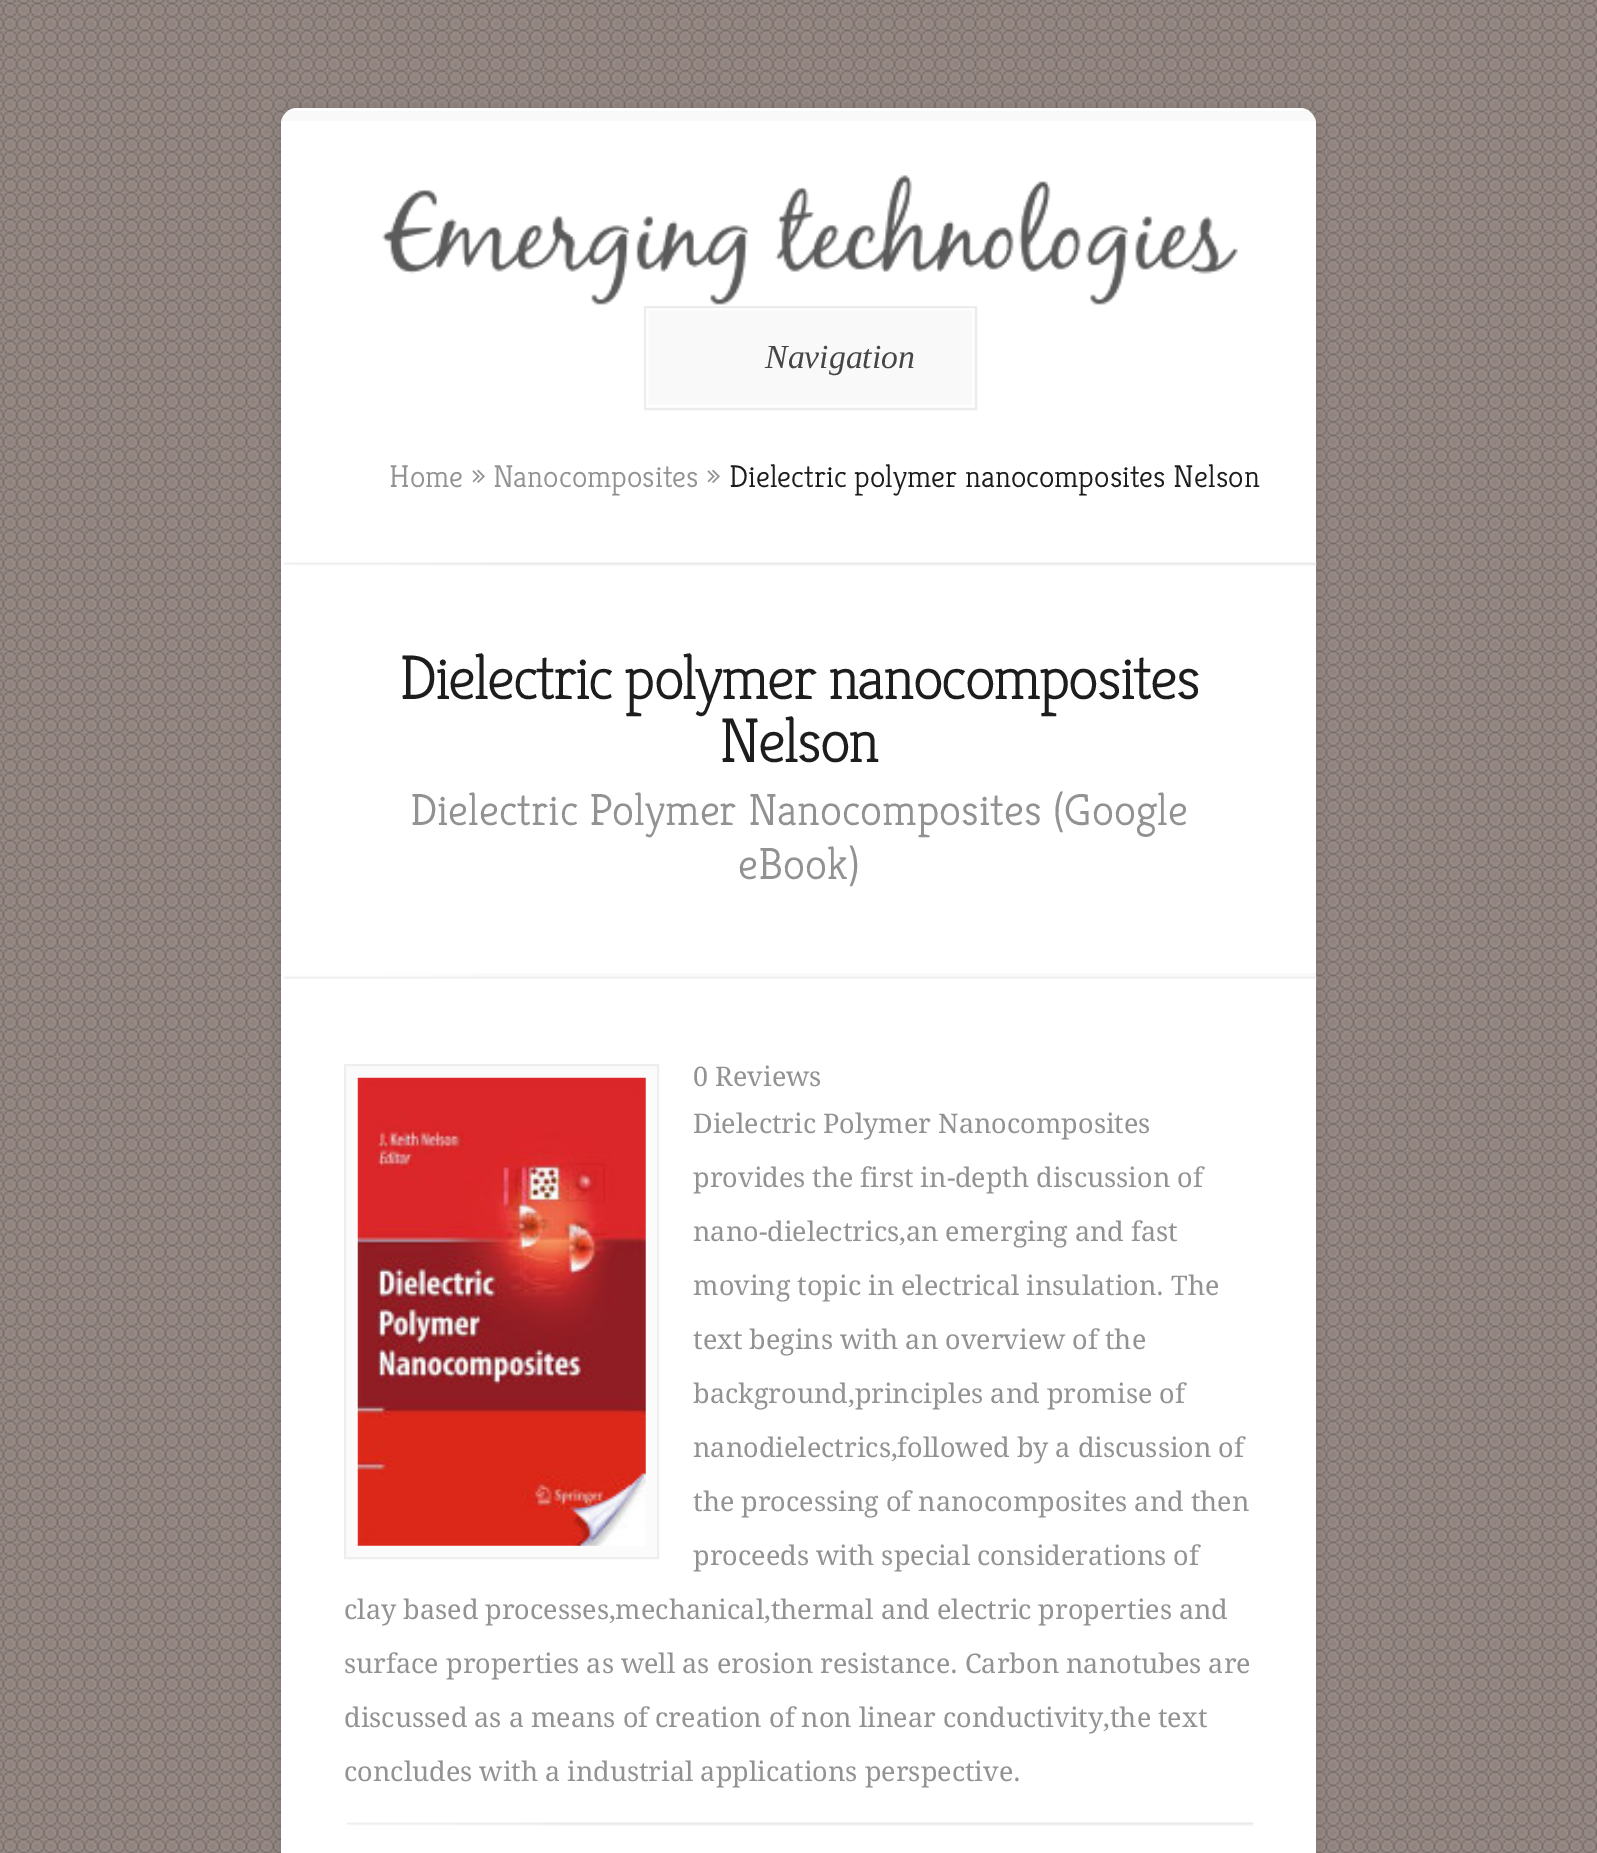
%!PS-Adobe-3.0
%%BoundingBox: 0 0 1597 1853
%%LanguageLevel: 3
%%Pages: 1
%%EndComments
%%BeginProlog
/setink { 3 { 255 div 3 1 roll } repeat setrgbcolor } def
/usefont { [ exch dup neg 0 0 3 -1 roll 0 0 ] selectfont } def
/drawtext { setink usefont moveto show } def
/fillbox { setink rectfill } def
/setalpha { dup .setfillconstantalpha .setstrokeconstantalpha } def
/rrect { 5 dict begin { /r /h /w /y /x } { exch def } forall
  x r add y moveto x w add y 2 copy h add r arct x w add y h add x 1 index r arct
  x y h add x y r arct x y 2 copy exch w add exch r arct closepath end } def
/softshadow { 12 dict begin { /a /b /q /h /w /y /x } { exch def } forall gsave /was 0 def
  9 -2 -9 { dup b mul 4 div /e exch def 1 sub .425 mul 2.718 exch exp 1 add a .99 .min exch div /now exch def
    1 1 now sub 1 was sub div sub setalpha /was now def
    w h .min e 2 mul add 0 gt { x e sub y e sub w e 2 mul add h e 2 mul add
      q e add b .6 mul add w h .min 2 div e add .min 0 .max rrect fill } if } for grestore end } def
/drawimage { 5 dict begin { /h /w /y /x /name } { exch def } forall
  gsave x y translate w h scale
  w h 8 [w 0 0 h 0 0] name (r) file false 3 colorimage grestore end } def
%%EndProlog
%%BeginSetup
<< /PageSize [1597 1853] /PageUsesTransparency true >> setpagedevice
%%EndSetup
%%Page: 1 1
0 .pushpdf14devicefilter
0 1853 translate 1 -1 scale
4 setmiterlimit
0 0 1597 1853 144 130 125 fillbox
(assets/img1.rgb) 0 0 1597 1853 drawimage
0 0 0 setink
281 108 1035 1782 16 7 0.1 softshadow
255 255 255 setink
281 108 1035 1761 16 rrect fill
(assets/img2.rgb) 282 111 1033 10 drawimage
(assets/img3.rgb) 382 175 856 130 drawimage
646 308 329 100 249 249 249 fillbox
255 255 255 setink
2 setlinewidth
647 309 326 97 rectstroke
236 236 236 setink
645 307 331 102 rectstroke
(Navigation) 765 368 /LiberationSerif-Italic 33.75 70 70 70 drawtext
(Home » Nanocomposites ») 389 487 /Kreon-Light 31.5 146 146 146 drawtext
(Dielectric polymer nanocomposites Nelson) 729 487 /Kreon-Light 31.5 29 29 29 drawtext
(assets/img4.rgb) 283 562 1034 4 drawimage
(assets/img5.rgb) 283 973 1034 6 drawimage
/Kreon-Light 63 usefont
399 699 moveto -2.25 0 (Dielectric polymer nanocomposites) ashow
719 762 moveto -2.25 0 (Nelson) ashow
(Dielectric Polymer Nanocomposites \(Google) 410 825 /Kreon-Light 45 146 146 146 drawtext
(eBook\)) 738 879 /Kreon-Light 45 146 146 146 drawtext
251 251 251 setink
345 1065 moveto 658 1065 lineto 658 1558 lineto 345 1558 lineto closepath gsave fill grestore
238 238 238 setink
stroke
(assets/img6.rgb) 357 1077 289 469 drawimage
(0 Reviews) 693 1086 /DroidSerif-Regular 27 146 146 146 drawtext
(Dielectric Polymer Nanocomposites) 693 1133 /DroidSerif-Regular 27 146 146 146 drawtext
(provides the first in-depth discussion of) 693 1187 /DroidSerif-Regular 27 146 146 146 drawtext
(nano-dielectrics,an emerging and fast) 693 1241 /DroidSerif-Regular 27 146 146 146 drawtext
(moving topic in electrical insulation. The) 693 1295 /DroidSerif-Regular 27 146 146 146 drawtext
(text begins with an overview of the) 693 1349 /DroidSerif-Regular 27 146 146 146 drawtext
(background,principles and promise of) 693 1403 /DroidSerif-Regular 27 146 146 146 drawtext
(nanodielectrics,followed by a discussion of) 693 1457 /DroidSerif-Regular 27 146 146 146 drawtext
(the processing of nanocomposites and then) 693 1511 /DroidSerif-Regular 27 146 146 146 drawtext
(proceeds with special considerations of) 693 1565 /DroidSerif-Regular 27 146 146 146 drawtext
(clay based processes,mechanical,thermal and electric properties and) 344 1619 /DroidSerif-Regular 27 146 146 146 drawtext
(surface properties as well as erosion resistance. Carbon nanotubes are) 344 1673 /DroidSerif-Regular 27 146 146 146 drawtext
(discussed as a means of creation of non linear conductivity,the text) 344 1727 /DroidSerif-Regular 27 146 146 146 drawtext
(concludes with a industrial applications perspective.) 344 1781 /DroidSerif-Regular 27 146 146 146 drawtext
(assets/img7.rgb) 346 1822 908 4 drawimage
.poppdf14devicefilter showpage
%%EOF
